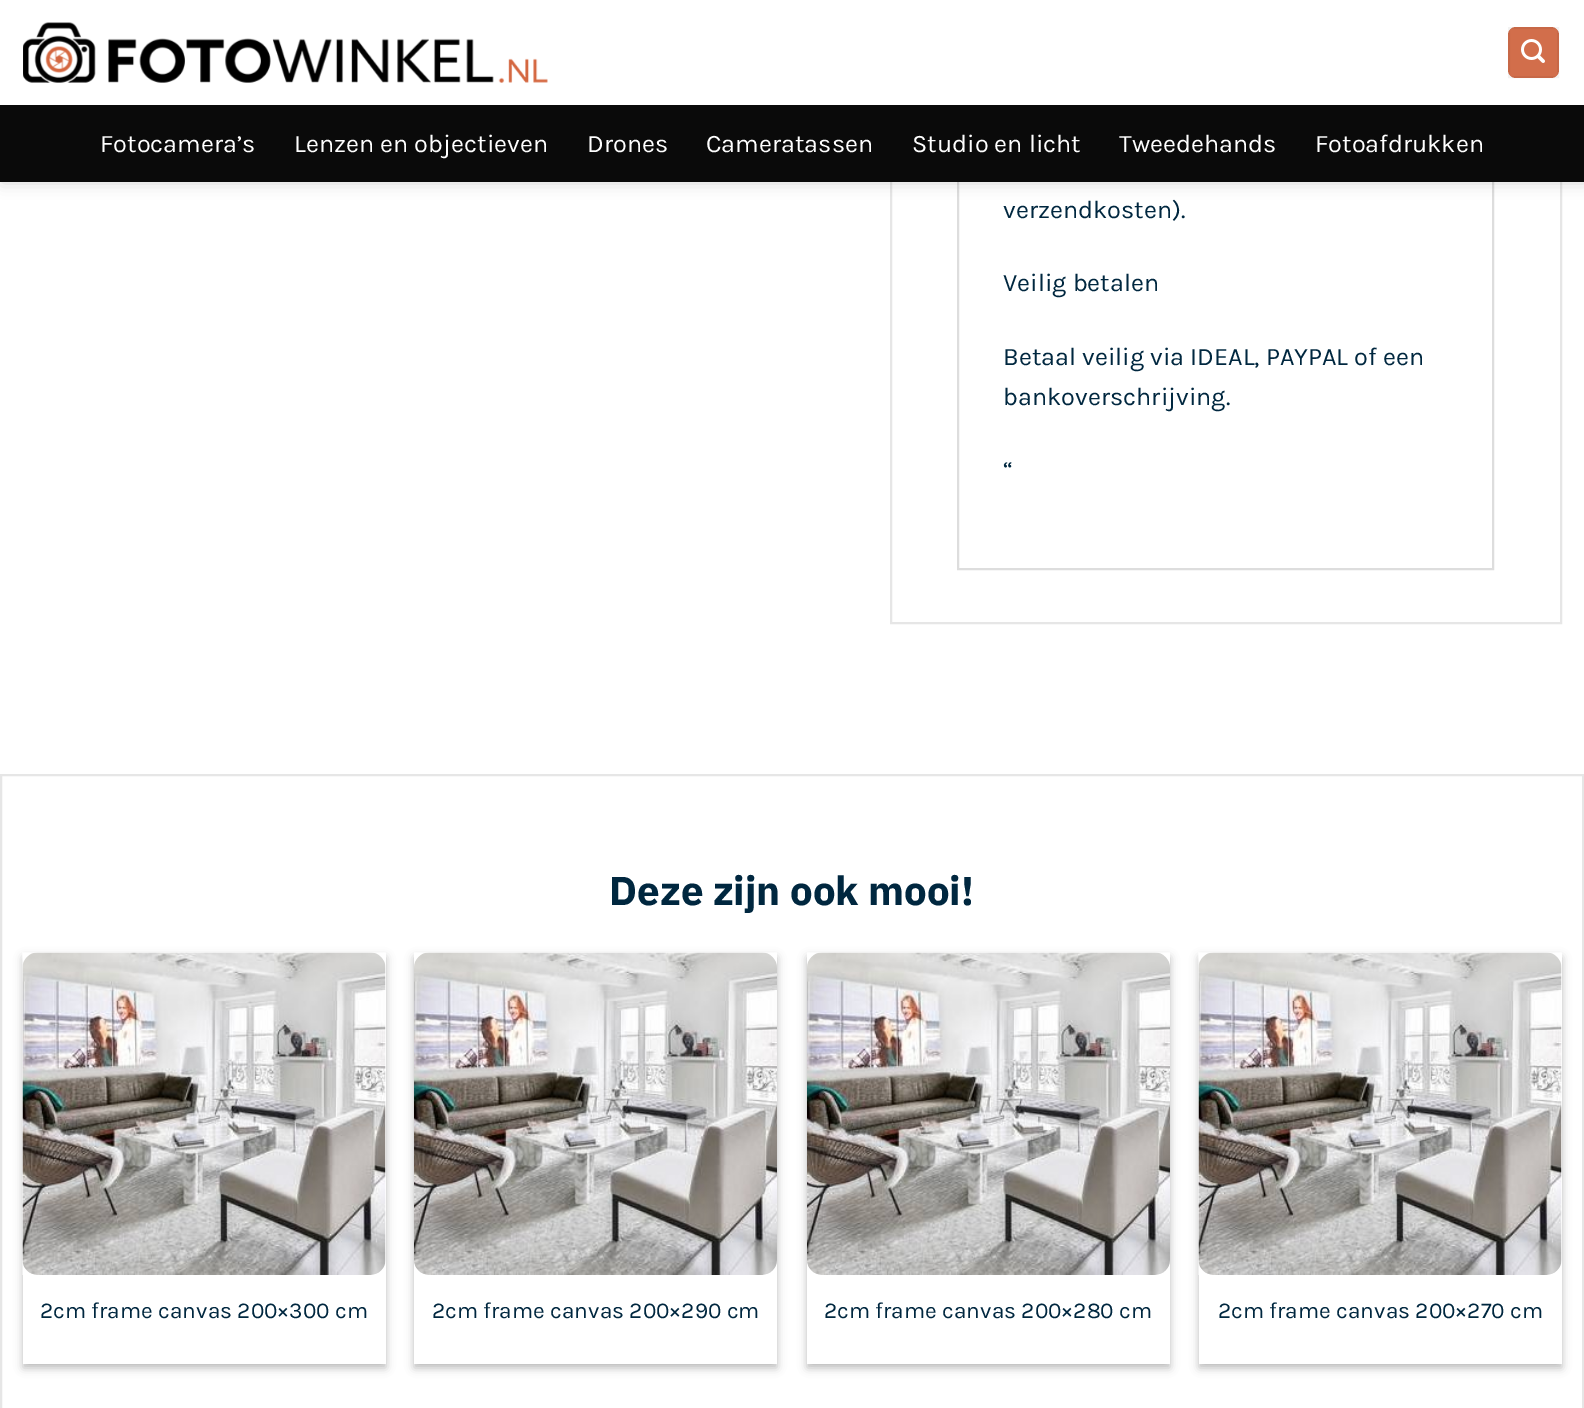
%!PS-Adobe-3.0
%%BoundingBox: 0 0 1584 1408
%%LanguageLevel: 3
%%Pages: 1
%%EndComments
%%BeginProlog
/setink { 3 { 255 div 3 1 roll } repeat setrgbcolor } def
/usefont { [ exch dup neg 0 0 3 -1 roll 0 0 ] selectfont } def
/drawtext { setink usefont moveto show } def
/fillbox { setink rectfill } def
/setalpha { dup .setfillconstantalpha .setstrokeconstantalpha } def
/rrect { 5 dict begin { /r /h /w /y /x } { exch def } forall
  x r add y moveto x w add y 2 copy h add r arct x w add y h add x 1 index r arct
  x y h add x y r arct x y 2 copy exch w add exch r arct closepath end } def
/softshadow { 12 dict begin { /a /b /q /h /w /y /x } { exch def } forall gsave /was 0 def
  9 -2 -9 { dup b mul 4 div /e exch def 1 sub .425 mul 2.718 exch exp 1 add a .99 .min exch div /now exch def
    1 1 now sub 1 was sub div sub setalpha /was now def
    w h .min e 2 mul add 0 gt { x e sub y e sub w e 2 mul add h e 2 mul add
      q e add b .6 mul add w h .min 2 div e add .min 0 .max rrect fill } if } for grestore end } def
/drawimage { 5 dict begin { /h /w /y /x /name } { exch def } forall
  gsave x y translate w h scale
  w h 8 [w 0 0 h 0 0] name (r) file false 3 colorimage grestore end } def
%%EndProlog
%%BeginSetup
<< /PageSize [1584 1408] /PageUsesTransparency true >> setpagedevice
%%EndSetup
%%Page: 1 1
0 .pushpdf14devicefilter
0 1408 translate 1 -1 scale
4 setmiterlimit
0 0 1584 1408 255 255 255 fillbox
221 221 221 setink
2 setlinewidth
958 -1 535 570 rectstroke
230 230 230 setink
891 -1 670 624 rectstroke
0 0 0 setink
2 2 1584 181 0 7.5 0.15 softshadow
0 0 1584 105 255 255 255 fillbox
(assets/img1.rgb) 23 22 525 61 drawimage
210 110 75 setink
1508 27 51 51 8 rrect fill
0.05 setalpha
0 0 0 setink
1509 28 49 49 rectstroke
1 setalpha
(assets/img2.rgb) 1521 39 24 24 drawimage
0 105 1584 77 10 10 10 fillbox
(Fotocamera’s) 100 152 /Karla-Regular 25.25 255 255 255 drawtext
(Lenzen en objectieven) 294 152 /Karla-Regular 25.25 255 255 255 drawtext
(Drones) 587 152 /Karla-Regular 25.25 255 255 255 drawtext
(Cameratassen) 706 152 /Karla-Regular 25.25 255 255 255 drawtext
(Studio en licht) 912 152 /Karla-Regular 25.25 255 255 255 drawtext
(Tweedehands) 1119 152 /Karla-Regular 25.25 255 255 255 drawtext
(Fotoafdrukken) 1315 152 /Karla-Regular 25.25 255 255 255 drawtext
(verzendkosten\).) 1003 218 /Karla-Regular 25.25 0 39 63 drawtext
(Veilig betalen) 1003 291 /Karla-Regular 25.25 0 39 63 drawtext
(Betaal veilig via IDEAL, PAYPAL of een) 1003 365 /Karla-Regular 25.25 0 39 63 drawtext
(bankoverschrijving.) 1003 405 /Karla-Regular 25.25 0 39 63 drawtext
(“) 1003 478 /Karla-Regular 25.25 0 39 63 drawtext
230 230 230 setink
1 775 1582 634 rectstroke
(Deze zijn ook mooi!) 609 905 /IBMPlexSans-Bold 40.25 0 39 63 drawtext
0 0 0 setink
23 957 363 411 0 4.5 0.23 softshadow
29 963 351 399 0 4.5 0.16 softshadow
23 953 363 411 255 255 255 fillbox
(assets/img3.rgb) 22 952 364 323 drawimage
(2cm frame canvas 200×300 cm) 40 1318 /Karla-Regular 22.7 0 39 63 drawtext
0 0 0 setink
414 957 363 411 0 4.5 0.23 softshadow
420 963 351 399 0 4.5 0.16 softshadow
414 953 363 411 255 255 255 fillbox
(assets/img4.rgb) 414 952 363 323 drawimage
(2cm frame canvas 200×290 cm) 432 1318 /Karla-Regular 22.7 0 39 63 drawtext
0 0 0 setink
807 957 363 411 0 4.5 0.23 softshadow
813 963 351 399 0 4.5 0.16 softshadow
807 953 363 411 255 255 255 fillbox
(assets/img5.rgb) 807 952 363 323 drawimage
(2cm frame canvas 200×280 cm) 824 1318 /Karla-Regular 22.7 0 39 63 drawtext
0 0 0 setink
1199 957 363 411 0 4.5 0.23 softshadow
1205 963 351 399 0 4.5 0.16 softshadow
1199 953 363 411 255 255 255 fillbox
(assets/img3.rgb) 1198 952 364 323 drawimage
(2cm frame canvas 200×270 cm) 1218 1318 /Karla-Regular 22.7 0 39 63 drawtext
.poppdf14devicefilter showpage
%%EOF
